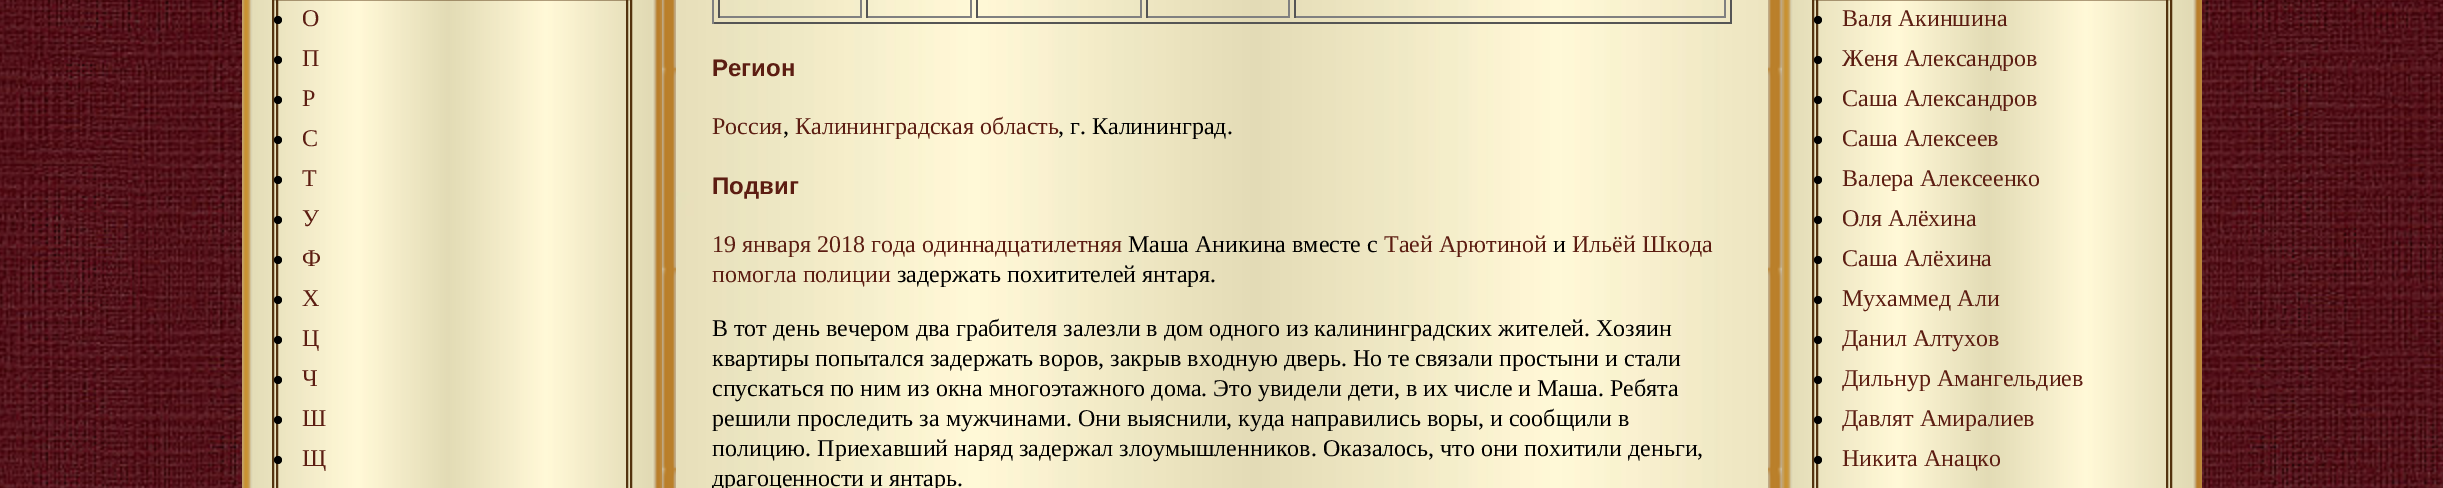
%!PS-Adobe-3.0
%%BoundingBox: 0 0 2443 488
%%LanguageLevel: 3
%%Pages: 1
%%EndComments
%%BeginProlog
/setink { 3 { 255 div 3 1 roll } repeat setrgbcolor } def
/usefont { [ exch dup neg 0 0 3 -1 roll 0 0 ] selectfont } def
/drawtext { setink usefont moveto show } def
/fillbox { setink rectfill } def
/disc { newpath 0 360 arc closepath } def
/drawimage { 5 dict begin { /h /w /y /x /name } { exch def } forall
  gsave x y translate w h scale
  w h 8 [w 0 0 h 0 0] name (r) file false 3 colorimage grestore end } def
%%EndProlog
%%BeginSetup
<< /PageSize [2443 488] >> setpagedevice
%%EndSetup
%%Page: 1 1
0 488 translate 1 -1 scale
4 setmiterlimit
0 0 2443 488 255 255 255 fillbox
(assets/img1.rgb) 0 0 2443 488 drawimage
(assets/img2.rgb) 242 0 420 488 drawimage
84 51 15 setink
2 setlinewidth
273 -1 358 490 rectstroke
277 -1 350 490 rectstroke
0 0 0 setink
278 20 4 disc fill
(О) 302 26 /LiberationSerif-Regular 24 92 29 18 drawtext
0 0 0 setink
278 60 4 disc fill
(П) 302 66 /LiberationSerif-Regular 24 92 29 18 drawtext
0 0 0 setink
278 100 4 disc fill
(Р) 302 106 /LiberationSerif-Regular 24 92 29 18 drawtext
0 0 0 setink
278 140 4 disc fill
(С) 302 146 /LiberationSerif-Regular 24 92 29 18 drawtext
0 0 0 setink
278 180 4 disc fill
(Т) 302 186 /LiberationSerif-Regular 24 92 29 18 drawtext
0 0 0 setink
278 220 4 disc fill
(У) 302 226 /LiberationSerif-Regular 24 92 29 18 drawtext
0 0 0 setink
278 260 4 disc fill
(Ф) 302 266 /LiberationSerif-Regular 24 92 29 18 drawtext
0 0 0 setink
278 300 4 disc fill
(Х) 302 306 /LiberationSerif-Regular 24 92 29 18 drawtext
0 0 0 setink
278 340 4 disc fill
(Ц) 302 346 /LiberationSerif-Regular 24 92 29 18 drawtext
0 0 0 setink
278 380 4 disc fill
(Ч) 302 386 /LiberationSerif-Regular 24 92 29 18 drawtext
0 0 0 setink
278 420 4 disc fill
(Ш) 302 426 /LiberationSerif-Regular 24 92 29 18 drawtext
0 0 0 setink
278 460 4 disc fill
(Щ) 302 466 /LiberationSerif-Regular 24 92 29 18 drawtext
(assets/img3.rgb) 662 0 1120 488 drawimage
(assets/img4.rgb) 662 0 14 488 drawimage
(assets/img5.rgb) 1768 0 14 488 drawimage
1730 0 2 24 85 85 85 fillbox
712 22 1020 2 85 85 85 fillbox
712 0 2 24 128 128 128 fillbox
860 0 2 18 128 128 128 fillbox
718 16 144 2 128 128 128 fillbox
718 0 2 18 85 85 85 fillbox
970 0 2 18 128 128 128 fillbox
866 16 106 2 128 128 128 fillbox
866 0 2 18 85 85 85 fillbox
1140 0 2 18 128 128 128 fillbox
976 16 166 2 128 128 128 fillbox
976 0 2 18 85 85 85 fillbox
1288 0 2 18 128 128 128 fillbox
1146 16 144 2 128 128 128 fillbox
1146 0 2 18 85 85 85 fillbox
1724 0 2 18 128 128 128 fillbox
1294 16 432 2 128 128 128 fillbox
1294 0 2 18 85 85 85 fillbox
(Регион) 712 76 /LiberationSans-Bold 24 92 29 18 drawtext
(Россия) 712 134 /LiberationSerif-Regular 24 92 29 18 drawtext
(,) 783 134 /LiberationSerif-Regular 24 0 0 0 drawtext
(Калининградская область) 795 134 /LiberationSerif-Regular 24 92 29 18 drawtext
(, г. Калининград.) 1058 134 /LiberationSerif-Regular 24 0 0 0 drawtext
(Подвиг) 712 194 /LiberationSans-Bold 24 92 29 18 drawtext
(19 января 2018 года одиннадцатилетняя) 712 252 /LiberationSerif-Regular 24 92 29 18 drawtext
(Маша Аникина вместе с) 1128 252 /LiberationSerif-Regular 24 0 0 0 drawtext
(Таей Арютиной) 1384 252 /LiberationSerif-Regular 24 92 29 18 drawtext
(и) 1553 252 /LiberationSerif-Regular 24 0 0 0 drawtext
(Ильёй Шкода) 1572 252 /LiberationSerif-Regular 24 92 29 18 drawtext
(помогла полиции) 712 282 /LiberationSerif-Regular 24 92 29 18 drawtext
(задержать похитителей янтаря.) 897 282 /LiberationSerif-Regular 24 0 0 0 drawtext
(В тот день вечером два грабителя залезли в дом одного из калининградских жителей. Хозяин) 712 336 /LiberationSerif-Regular 24 0 0 0 drawtext
(квартиры попытался задержать воров, закрыв входную дверь. Но те связали простыни и стали) 712 366 /LiberationSerif-Regular 24 0 0 0 drawtext
(спускаться по ним из окна многоэтажного дома. Это увидели дети, в их числе и Маша. Ребята) 712 396 /LiberationSerif-Regular 24 0 0 0 drawtext
(решили проследить за мужчинами. Они выяснили, куда направились воры, и сообщили в) 712 426 /LiberationSerif-Regular 24 0 0 0 drawtext
(полицию. Приехавший наряд задержал злоумышленников. Оказалось, что они похитили деньги,) 712 456 /LiberationSerif-Regular 24 0 0 0 drawtext
(драгоценности и янтарь.) 712 486 /LiberationSerif-Regular 24 0 0 0 drawtext
(assets/img2.rgb) 1782 0 420 488 drawimage
84 51 15 setink
1813 -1 358 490 rectstroke
1817 -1 350 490 rectstroke
0 0 0 setink
1818 20 4 disc fill
(Валя Акиншина) 1842 26 /LiberationSerif-Regular 24 92 29 18 drawtext
0 0 0 setink
1818 60 4 disc fill
(Женя Александров) 1842 66 /LiberationSerif-Regular 24 92 29 18 drawtext
0 0 0 setink
1818 100 4 disc fill
(Саша Александров) 1842 106 /LiberationSerif-Regular 24 92 29 18 drawtext
0 0 0 setink
1818 140 4 disc fill
(Саша Алексеев) 1842 146 /LiberationSerif-Regular 24 92 29 18 drawtext
0 0 0 setink
1818 180 4 disc fill
(Валера Алексеенко) 1842 186 /LiberationSerif-Regular 24 92 29 18 drawtext
0 0 0 setink
1818 220 4 disc fill
(Оля Алёхина) 1842 226 /LiberationSerif-Regular 24 92 29 18 drawtext
0 0 0 setink
1818 260 4 disc fill
(Саша Алёхина) 1842 266 /LiberationSerif-Regular 24 92 29 18 drawtext
0 0 0 setink
1818 300 4 disc fill
(Мухаммед Али) 1842 306 /LiberationSerif-Regular 24 92 29 18 drawtext
0 0 0 setink
1818 340 4 disc fill
(Данил Алтухов) 1842 346 /LiberationSerif-Regular 24 92 29 18 drawtext
0 0 0 setink
1818 380 4 disc fill
(Дильнур Амангельдиев) 1842 386 /LiberationSerif-Regular 24 92 29 18 drawtext
0 0 0 setink
1818 420 4 disc fill
(Давлят Амиралиев) 1842 426 /LiberationSerif-Regular 24 92 29 18 drawtext
0 0 0 setink
1818 460 4 disc fill
(Никита Анацко) 1842 466 /LiberationSerif-Regular 24 92 29 18 drawtext
showpage
%%EOF
